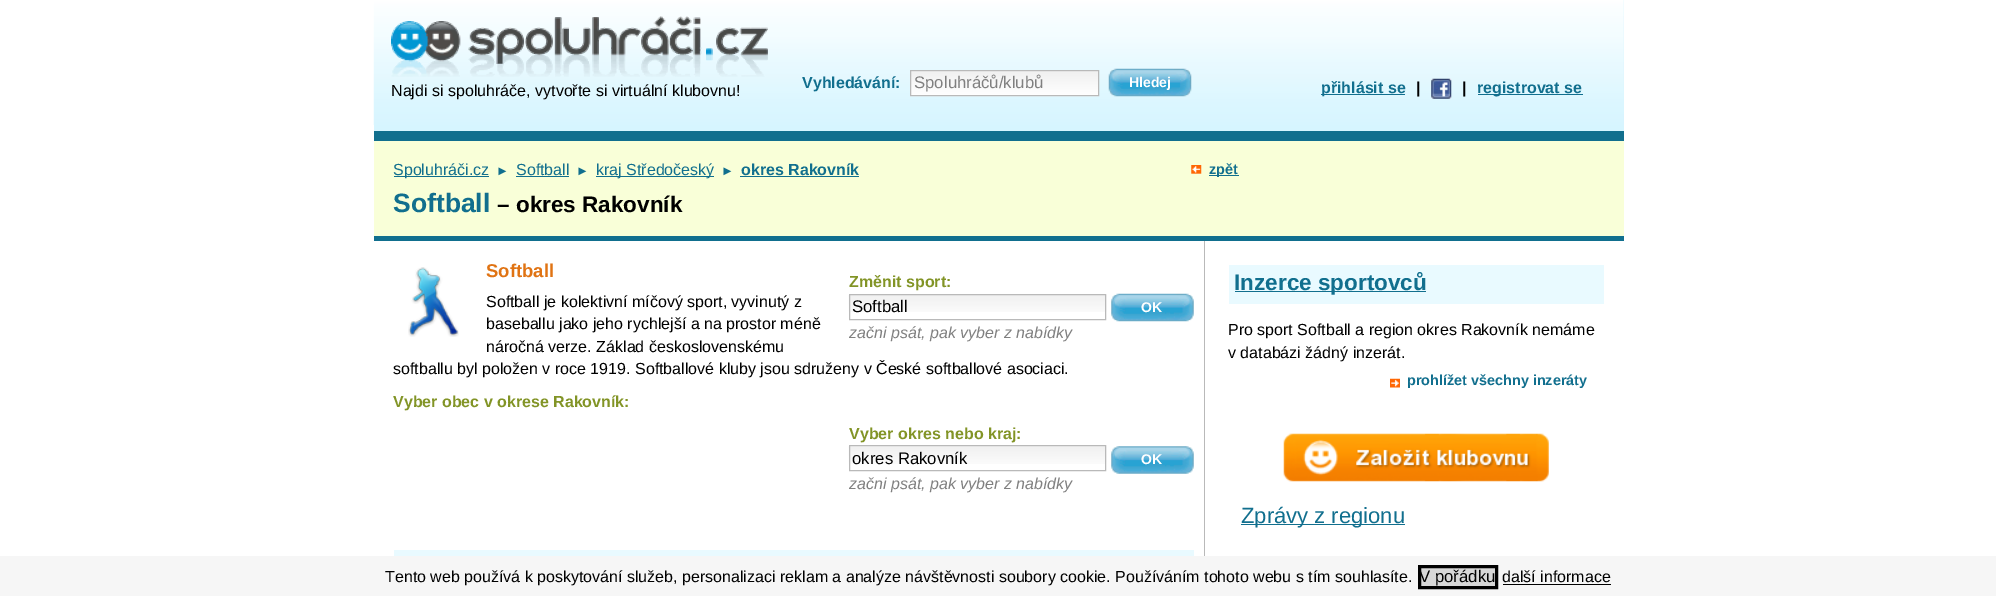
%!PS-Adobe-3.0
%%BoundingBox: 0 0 1996 596
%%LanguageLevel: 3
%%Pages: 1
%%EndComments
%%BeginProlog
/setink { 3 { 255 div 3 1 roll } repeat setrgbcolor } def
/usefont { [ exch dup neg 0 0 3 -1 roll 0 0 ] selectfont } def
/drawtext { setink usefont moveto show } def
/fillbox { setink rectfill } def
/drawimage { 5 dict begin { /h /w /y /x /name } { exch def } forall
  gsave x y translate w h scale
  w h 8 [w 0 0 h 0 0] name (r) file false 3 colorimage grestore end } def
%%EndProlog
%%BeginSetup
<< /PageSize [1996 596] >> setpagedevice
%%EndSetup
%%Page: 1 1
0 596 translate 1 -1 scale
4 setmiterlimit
0 0 1996 596 255 255 255 fillbox
374 0 1250 131 214 245 255 fillbox
(assets/img1.rgb) 373 0 1251 125 drawimage
374 131 1250 10 17 111 142 fillbox
(assets/img2.rgb) 391 16 377 61 drawimage
(assets/img3.rgb) 391 16 377 57 drawimage
(assets/img4.rgb) 391 16 377 48 drawimage
(Najdi si spoluhráče, vytvořte si virtuální klubovnu!) 391 96 /LiberationSans-Regular 16 0 0 0 drawtext
(Vyhledávání:) 802 88 /LiberationSans-Bold 16 17 111 142 drawtext
(assets/img5.rgb) 910 71 189 26 drawimage
185 185 185 setink
910.5 70.5 188 25 rectstroke
(Spoluhráčů/klubů) 914 88 /LiberationSans-Regular 16.75 128 128 128 drawtext
(assets/img6.rgb) 1108 68 84 29 drawimage
(Hledej) 1129 87 /LiberationSans-Bold 14 255 255 255 drawtext
1321 94 84 1 17 111 142 fillbox
(přihlásit se) 1321 93 /LiberationSans-Bold 16 17 111 142 drawtext
(|) 1416 93 /LiberationSans-Bold 16 0 0 0 drawtext
(assets/img7.rgb) 1431 78 21 21 drawimage
(|) 1462 93 /LiberationSans-Bold 16 0 0 0 drawtext
1478 94 105 1 17 111 142 fillbox
(registrovat se) 1477 93 /LiberationSans-Bold 16 17 111 142 drawtext
374 141 1250 95 249 255 216 fillbox
374 236 1250 5 17 111 142 fillbox
394 176 95 1 17 111 142 fillbox
(Spoluhráči.cz) 393 175 /LiberationSans-Regular 16 17 111 142 drawtext
(►) 496 175 /LiberationSans-Regular 13 17 111 142 drawtext
(Softball) 516 175 /LiberationSans-Regular 16 17 111 142 drawtext
516 176 53 1 17 111 142 fillbox
(►) 576 175 /LiberationSans-Regular 13 17 111 142 drawtext
596 176 118 1 17 111 142 fillbox
(kraj Středočeský) 596 175 /LiberationSans-Regular 16 17 111 142 drawtext
(►) 721 175 /LiberationSans-Regular 13 17 111 142 drawtext
(okres Rakovník) 741 175 /LiberationSans-Bold 16 17 111 142 drawtext
740 176 119 1 17 111 142 fillbox
(Softball) 393 212 /LiberationSans-Bold 26.5 17 111 142 drawtext
(– okres Rakovník) 497 212 /LiberationSans-Bold 22.5 0 0 0 drawtext
(assets/img8.rgb) 1191 165 11 9 drawimage
1209 175 30 1 17 111 142 fillbox
(zpět) 1209 174 /LiberationSans-Bold 14.4 17 111 142 drawtext
1204 241 1 315 185 185 185 fillbox
(assets/img9.rgb) 408 267 51 70 drawimage
(Softball) 486 277 /LiberationSans-Bold 18.5 224 115 19 drawtext
(Změnit sport:) 849 287 /LiberationSans-Bold 16 130 148 38 drawtext
(assets/img10.rgb) 848 295 259 17 drawimage
185 185 185 setink
849.5 294.5 256 25 rectstroke
(Softball) 852 312 /LiberationSans-Regular 16.75 0 0 0 drawtext
(assets/img11.rgb) 1111 293 83 29 drawimage
(OK) 1141 312 /LiberationSans-Bold 14 255 255 255 drawtext
(začni psát, pak vyber z nabídky) 849 338 /LiberationSans-Italic 16 128 128 128 drawtext
(Softball je kolektivní míčový sport, vyvinutý z) 486 307 /LiberationSans-Regular 16 0 0 0 drawtext
(baseballu jako jeho rychlejší a na prostor méně) 486 329 /LiberationSans-Regular 16 0 0 0 drawtext
(náročná verze. Základ československému) 486 352 /LiberationSans-Regular 16 0 0 0 drawtext
(softballu byl položen v roce 1919. Softballové kluby jsou sdruženy v České softballové asociaci.) 393 374 /LiberationSans-Regular 16 0 0 0 drawtext
(Vyber obec v okrese Rakovník:) 393 407 /LiberationSans-Bold 16 130 148 38 drawtext
(Vyber okres nebo kraj:) 849 439 /LiberationSans-Bold 16 130 148 38 drawtext
(assets/img12.rgb) 848 446 259 18 drawimage
185 185 185 setink
849.5 445.5 256 25 rectstroke
(okres Rakovník) 852 464 /LiberationSans-Regular 16.75 0 0 0 drawtext
(assets/img13.rgb) 1111 446 83 28 drawimage
(OK) 1141 464 /LiberationSans-Bold 14 255 255 255 drawtext
(začni psát, pak vyber z nabídky) 849 489 /LiberationSans-Italic 16 128 128 128 drawtext
394 550 800 6 233 250 255 fillbox
1229 265 375 39 233 250 255 fillbox
1235 291 191 1 17 111 142 fillbox
(Inzerce sportovců) 1234 290 /LiberationSans-Bold 22.5 17 111 142 drawtext
(Pro sport Softball a region okres Rakovník nemáme) 1228 335 /LiberationSans-Regular 16 0 0 0 drawtext
(v databázi žádný inzerát.) 1228 358 /LiberationSans-Regular 16 0 0 0 drawtext
(assets/img14.rgb) 1390 378 10 10 drawimage
(prohlížet všechny inzeráty) 1407 385 /LiberationSans-Bold 14.4 17 111 142 drawtext
(assets/img15.rgb) 1283 433 266 49 drawimage
1241 524 164 1 17 111 142 fillbox
(Zprávy z regionu) 1241 523 /LiberationSans-Regular 22 17 111 142 drawtext
0 556 1996 40 246 246 246 fillbox
(Tento web používá k poskytování služeb, personalizaci reklam a analýze návštěvnosti soubory cookie. Používáním tohoto webu s tím souhlasíte.) 385 582 /LiberationSans-Regular 16 0 0 0 drawtext
215 215 215 setink
1419.5 566.5 moveto 1496.5 566.5 lineto 1496.5 587.5 lineto 1419.5 587.5 lineto closepath gsave fill grestore
0 0 0 setink
3 setlinewidth
stroke
(V pořádku) 1419 582 /LiberationSans-Regular 16.75 0 0 0 drawtext
(další informace) 1502 582 /LiberationSans-Regular 16 0 0 0 drawtext
1503 584 108 1 0 0 0 fillbox
showpage
%%EOF
